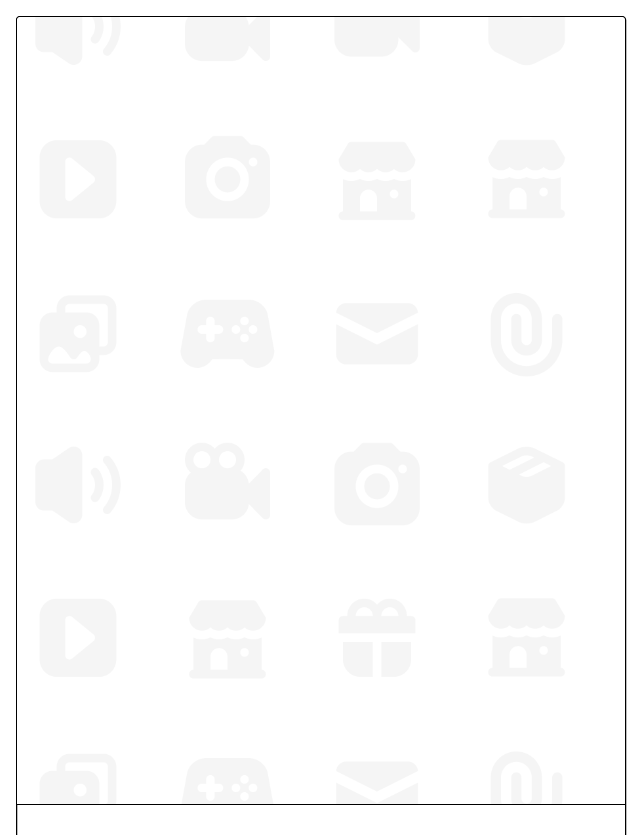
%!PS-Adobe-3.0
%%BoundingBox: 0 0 642 835
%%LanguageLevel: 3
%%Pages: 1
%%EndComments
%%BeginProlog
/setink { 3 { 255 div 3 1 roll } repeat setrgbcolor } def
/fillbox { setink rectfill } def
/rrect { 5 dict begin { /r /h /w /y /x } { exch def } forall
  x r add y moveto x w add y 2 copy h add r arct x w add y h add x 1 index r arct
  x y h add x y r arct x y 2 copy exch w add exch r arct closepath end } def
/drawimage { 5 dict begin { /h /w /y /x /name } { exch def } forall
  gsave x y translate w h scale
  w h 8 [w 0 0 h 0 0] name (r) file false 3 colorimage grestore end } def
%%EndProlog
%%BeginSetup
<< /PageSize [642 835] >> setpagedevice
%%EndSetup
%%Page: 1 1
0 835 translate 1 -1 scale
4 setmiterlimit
0 0 642 835 255 255 255 fillbox
0 0 0 setink
16.5 16.5 609 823 3.5 rrect stroke
(assets/img1.rgb) 17 17 608 787 drawimage
17 804 608 1 0 0 0 fillbox
showpage
%%EOF
